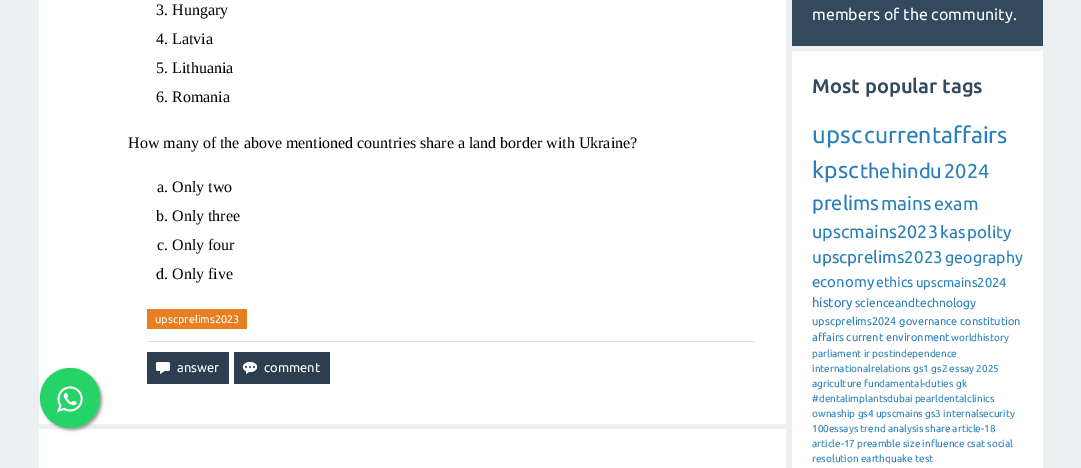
%!PS-Adobe-3.0
%%BoundingBox: 0 0 1081 468
%%LanguageLevel: 3
%%Pages: 1
%%EndComments
%%BeginProlog
/setink { 3 { 255 div 3 1 roll } repeat setrgbcolor } def
/usefont { [ exch dup neg 0 0 3 -1 roll 0 0 ] selectfont } def
/drawtext { setink usefont moveto show } def
/fillbox { setink rectfill } def
/setalpha { dup .setfillconstantalpha .setstrokeconstantalpha } def
/disc { newpath 0 360 arc closepath } def
/rrect { 5 dict begin { /r /h /w /y /x } { exch def } forall
  x r add y moveto x w add y 2 copy h add r arct x w add y h add x 1 index r arct
  x y h add x y r arct x y 2 copy exch w add exch r arct closepath end } def
/softshadow { 12 dict begin { /a /b /q /h /w /y /x } { exch def } forall gsave /was 0 def
  9 -2 -9 { dup b mul 4 div /e exch def 1 sub .425 mul 2.718 exch exp 1 add a .99 .min exch div /now exch def
    1 1 now sub 1 was sub div sub setalpha /was now def
    w h .min e 2 mul add 0 gt { x e sub y e sub w e 2 mul add h e 2 mul add
      q e add b .6 mul add w h .min 2 div e add .min 0 .max rrect fill } if } for grestore end } def
/drawimage { 5 dict begin { /h /w /y /x /name } { exch def } forall
  gsave x y translate w h scale
  w h 8 [w 0 0 h 0 0] name (r) file false 3 colorimage grestore end } def
%%EndProlog
%%BeginSetup
<< /PageSize [1081 468] /PageUsesTransparency true >> setpagedevice
%%EndSetup
%%Page: 1 1
0 .pushpdf14devicefilter
0 468 translate 1 -1 scale
4 setmiterlimit
0 0 1081 468 236 240 241 fillbox
39 0 747 424 255 255 255 fillbox
39 429 747 39 255 255 255 fillbox
153 153 153 setink
42 370 60 60 30 1.5 1 softshadow
37 211 102 setink
70 398 30 disc fill
(assets/img1.rgb) 57 386 26 27 drawimage
(3. Hungary) 156 15 /LiberationSerif-Regular 16 0 0 0 drawtext
(4. Latvia) 156 44 /LiberationSerif-Regular 16 0 0 0 drawtext
(5. Lithuania) 156 73 /LiberationSerif-Regular 16 0 0 0 drawtext
(6. Romania) 156 102 /LiberationSerif-Regular 16 0 0 0 drawtext
(How many of the above mentioned countries share a land border with Ukraine?) 128 148 /LiberationSerif-Regular 16 0 0 0 drawtext
(a. Only two) 157 192 /LiberationSerif-Regular 16 0 0 0 drawtext
(b. Only three) 156 221 /LiberationSerif-Regular 16 0 0 0 drawtext
(c. Only four) 157 250 /LiberationSerif-Regular 16 0 0 0 drawtext
(d. Only five) 156 279 /LiberationSerif-Regular 16 0 0 0 drawtext
147 309 100 20 230 126 34 fillbox
(upscprelims2023) 155 323 /Ubuntu-Regular 11 255 255 255 drawtext
147 341 608 1 222 225 227 fillbox
147 352 82 32 44 62 80 fillbox
(assets/img2.rgb) 155 362 15 12 drawimage
(answer) 177 372 /Ubuntu-Regular 13 255 255 255 drawtext
234 352 96 32 44 62 80 fillbox
(assets/img3.rgb) 242 362 15 12 drawimage
(comment) 264 372 /Ubuntu-Regular 13 255 255 255 drawtext
792 0 251 46 52 73 94 fillbox
(members of the community.) 812 20 /Ubuntu-Regular 16 255 255 255 drawtext
792 51 251 417 255 255 255 fillbox
(Most popular tags) 812 93 /Ubuntu-Bold 20 52 73 94 drawtext
(upsc) 812 143 /Ubuntu-Regular 24 41 128 185 drawtext
(currentaffairs) 864 143 /Ubuntu-Regular 23 41 128 185 drawtext
(kpsc) 812 178 /Ubuntu-Regular 23 41 128 185 drawtext
(thehindu) 860 178 /Ubuntu-Regular 20 41 128 185 drawtext
(2024) 944 178 /Ubuntu-Regular 20 41 128 185 drawtext
(prelims) 812 210 /Ubuntu-Regular 20 41 128 185 drawtext
(mains) 881 210 /Ubuntu-Regular 19 41 128 185 drawtext
(exam) 934 210 /Ubuntu-Regular 18 41 128 185 drawtext
(upscmains2023) 812 238 /Ubuntu-Regular 18 41 128 185 drawtext
(kas) 940 238 /Ubuntu-Regular 17 41 128 185 drawtext
(polity) 967 238 /Ubuntu-Regular 17 41 128 185 drawtext
(upscprelims2023) 812 263 /Ubuntu-Regular 17 41 128 185 drawtext
(geography) 945 263 /Ubuntu-Regular 16 41 128 185 drawtext
(economy) 812 287 /Ubuntu-Regular 15 41 128 185 drawtext
(ethics) 876 287 /Ubuntu-Regular 14 41 128 185 drawtext
(upscmains2024) 916 287 /Ubuntu-Regular 13 41 128 185 drawtext
(history) 812 307 /Ubuntu-Regular 13 41 128 185 drawtext
(scienceandtechnology) 855 307 /Ubuntu-Regular 12 41 128 185 drawtext
(upscprelims2024 governance constitution) 812 325 /Ubuntu-Regular 11 41 128 185 drawtext
(affairs current environment) 812 341 /Ubuntu-Regular 11 41 128 185 drawtext
(worldhistory) 951 341 /Ubuntu-Regular 10 41 128 185 drawtext
(parliament ir postindependence) 812 357 /Ubuntu-Regular 10 41 128 185 drawtext
(internationalrelations gs1 gs2 essay 2025) 812 372 /Ubuntu-Regular 10 41 128 185 drawtext
(agriculture fundamental-duties gk) 812 387 /Ubuntu-Regular 10 41 128 185 drawtext
(#dentalimplantsdubai pearldentalclinics) 812 402 /Ubuntu-Regular 10 41 128 185 drawtext
(ownaship gs4 upscmains gs3 internalsecurity) 812 417 /Ubuntu-Regular 10 41 128 185 drawtext
(100essays trend analysis share article-18) 812 432 /Ubuntu-Regular 10 41 128 185 drawtext
(article-17 preamble size influence csat social) 812 447 /Ubuntu-Regular 10 41 128 185 drawtext
(resolution earthquake test) 812 462 /Ubuntu-Regular 10 41 128 185 drawtext
.poppdf14devicefilter showpage
%%EOF
